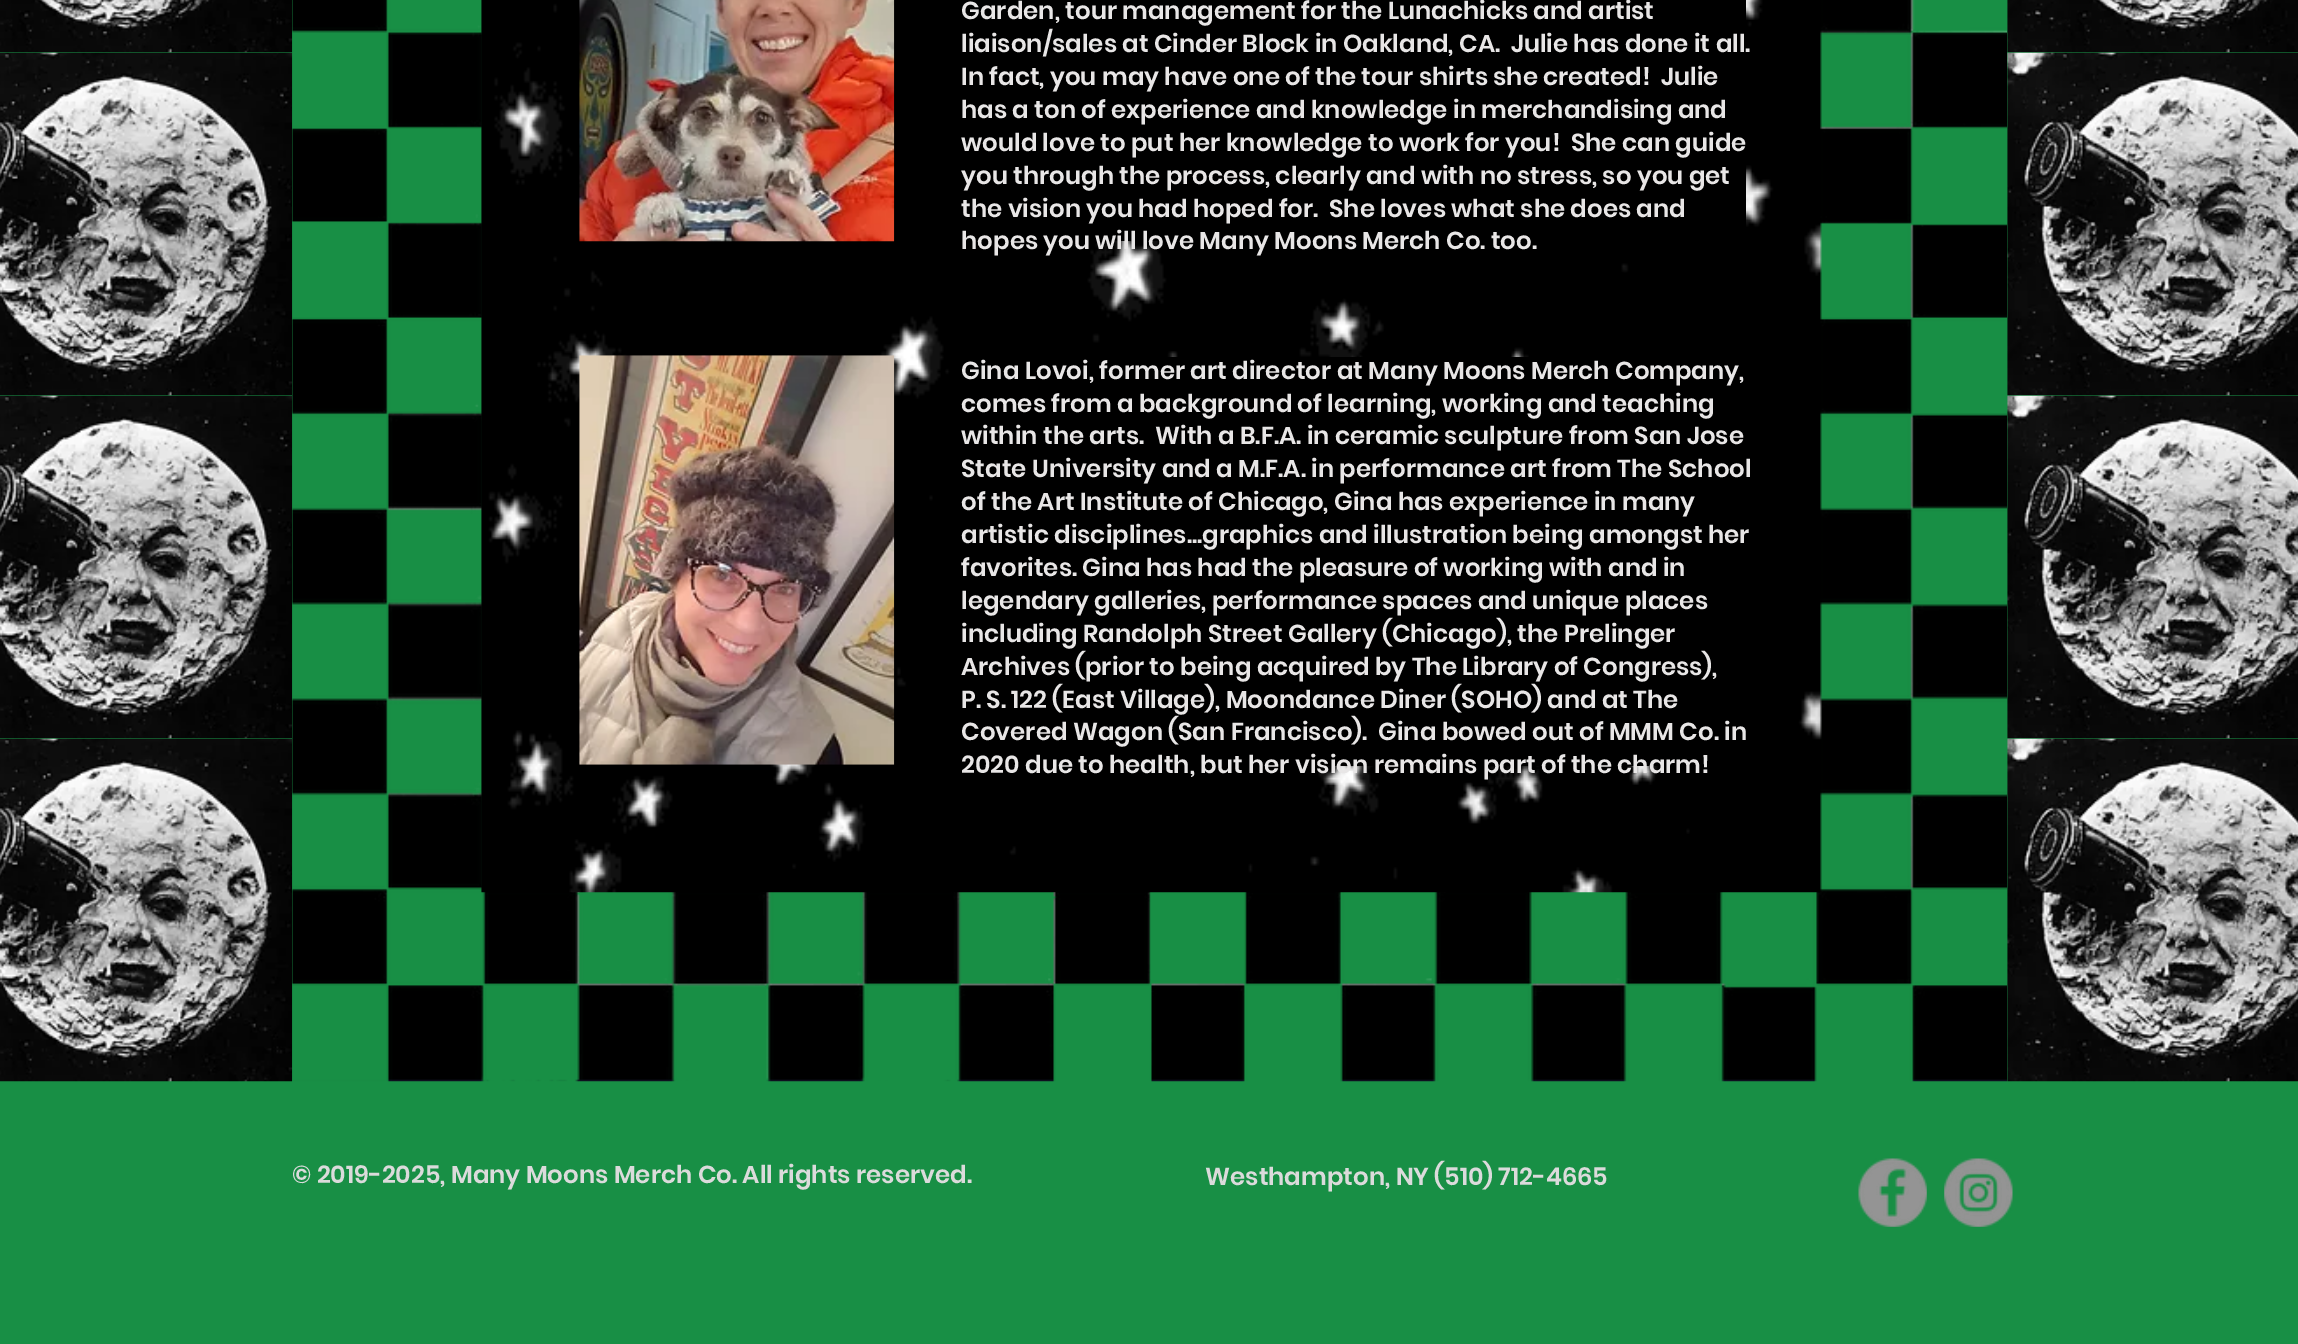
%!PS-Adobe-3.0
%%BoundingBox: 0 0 2298 1344
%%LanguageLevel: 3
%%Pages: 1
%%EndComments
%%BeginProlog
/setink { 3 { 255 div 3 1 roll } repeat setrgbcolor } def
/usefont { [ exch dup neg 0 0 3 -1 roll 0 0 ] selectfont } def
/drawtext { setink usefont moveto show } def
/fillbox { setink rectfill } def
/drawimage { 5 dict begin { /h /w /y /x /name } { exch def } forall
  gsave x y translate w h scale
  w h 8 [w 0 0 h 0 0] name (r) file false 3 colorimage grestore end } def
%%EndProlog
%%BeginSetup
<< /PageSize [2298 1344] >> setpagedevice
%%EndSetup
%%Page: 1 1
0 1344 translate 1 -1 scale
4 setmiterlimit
0 0 2298 1344 24 143 69 fillbox
(assets/img9.rgb) 292 0 1716 1082 drawimage
(assets/img1.rgb) 0 0 293 53 drawimage
(assets/img2.rgb) 2007 0 291 53 drawimage
(assets/img3.rgb) 0 52 293 344 drawimage
(assets/img4.rgb) 2007 52 291 344 drawimage
(assets/img5.rgb) 0 395 293 344 drawimage
(assets/img6.rgb) 2007 395 291 344 drawimage
(assets/img7.rgb) 0 738 293 344 drawimage
(assets/img8.rgb) 2007 738 291 344 drawimage
(assets/img10.rgb) 481 0 1341 893 drawimage
(assets/img11.rgb) 579 0 316 242 drawimage
974 0 772 241 0 0 0 fillbox
(Garden, tour management for the Lunachicks and artist) 961 19 /Poppins-SemiBold 24.5 232 230 230 drawtext
(liaison/sales at Cinder Block in Oakland, CA.  Julie has done it all.) 961 52 /Poppins-SemiBold 24.5 232 230 230 drawtext
(In fact, you may have one of the tour shirts she created!  Julie) 961 85 /Poppins-SemiBold 24.5 232 230 230 drawtext
(has a ton of experience and knowledge in merchandising and) 961 118 /Poppins-SemiBold 24.5 232 230 230 drawtext
(would love to put her knowledge to work for you!  She can guide) 961 151 /Poppins-SemiBold 24.5 232 230 230 drawtext
(you through the process, clearly and with no stress, so you get) 961 184 /Poppins-SemiBold 24.5 232 230 230 drawtext
(the vision you had hoped for.  She loves what she does and) 961 217 /Poppins-SemiBold 24.5 232 230 230 drawtext
(hopes you will love Many Moons Merch Co. too.) 961 249 /Poppins-SemiBold 24.5 232 230 230 drawtext
(assets/img12.rgb) 579 355 316 410 drawimage
993 357 751 409 0 0 0 fillbox
(Gina Lovoi, former art director at Many Moons Merch Company,) 961 379 /Poppins-SemiBold 24.5 232 230 230 drawtext
(comes from a background of learning, working and teaching) 961 412 /Poppins-SemiBold 24.5 232 230 230 drawtext
(within the arts.  With a B.F.A. in ceramic sculpture from San Jose) 961 444 /Poppins-SemiBold 24.5 232 230 230 drawtext
(State University and a M.F.A. in performance art from The School) 961 477 /Poppins-SemiBold 24.5 232 230 230 drawtext
(of the Art Institute of Chicago, Gina has experience in many) 961 510 /Poppins-SemiBold 24.5 232 230 230 drawtext
(artistic disciplines...graphics and illustration being amongst her) 961 543 /Poppins-SemiBold 24.5 232 230 230 drawtext
(favorites. Gina has had the pleasure of working with and in) 961 576 /Poppins-SemiBold 24.5 232 230 230 drawtext
(legendary galleries, performance spaces and unique places) 961 609 /Poppins-SemiBold 24.5 232 230 230 drawtext
(including Randolph Street Gallery \(Chicago\), the Prelinger) 961 642 /Poppins-SemiBold 24.5 232 230 230 drawtext
(Archives \(prior to being acquired by The Library of Congress\),) 961 675 /Poppins-SemiBold 24.5 232 230 230 drawtext
(P. S. 122 \(East Village\), Moondance Diner \(SOHO\) and at The) 961 708 /Poppins-SemiBold 24.5 232 230 230 drawtext
(Covered Wagon \(San Francisco\).  Gina bowed out of MMM Co. in) 961 740 /Poppins-SemiBold 24.5 232 230 230 drawtext
(2020 due to health, but her vision remains part of the charm!) 961 773 /Poppins-SemiBold 24.5 232 230 230 drawtext
(© 2019-2025, Many Moons Merch Co. All rights reserved.) 292 1183 /Poppins-SemiBold 24.5 219 219 219 drawtext
(Westhampton, NY \(510\) 712-4665) 1205 1185 /Poppins-SemiBold 24.5 219 219 219 drawtext
(assets/img13.rgb) 1858 1158 69 69 drawimage
(assets/img14.rgb) 1944 1158 69 69 drawimage
showpage
%%EOF
